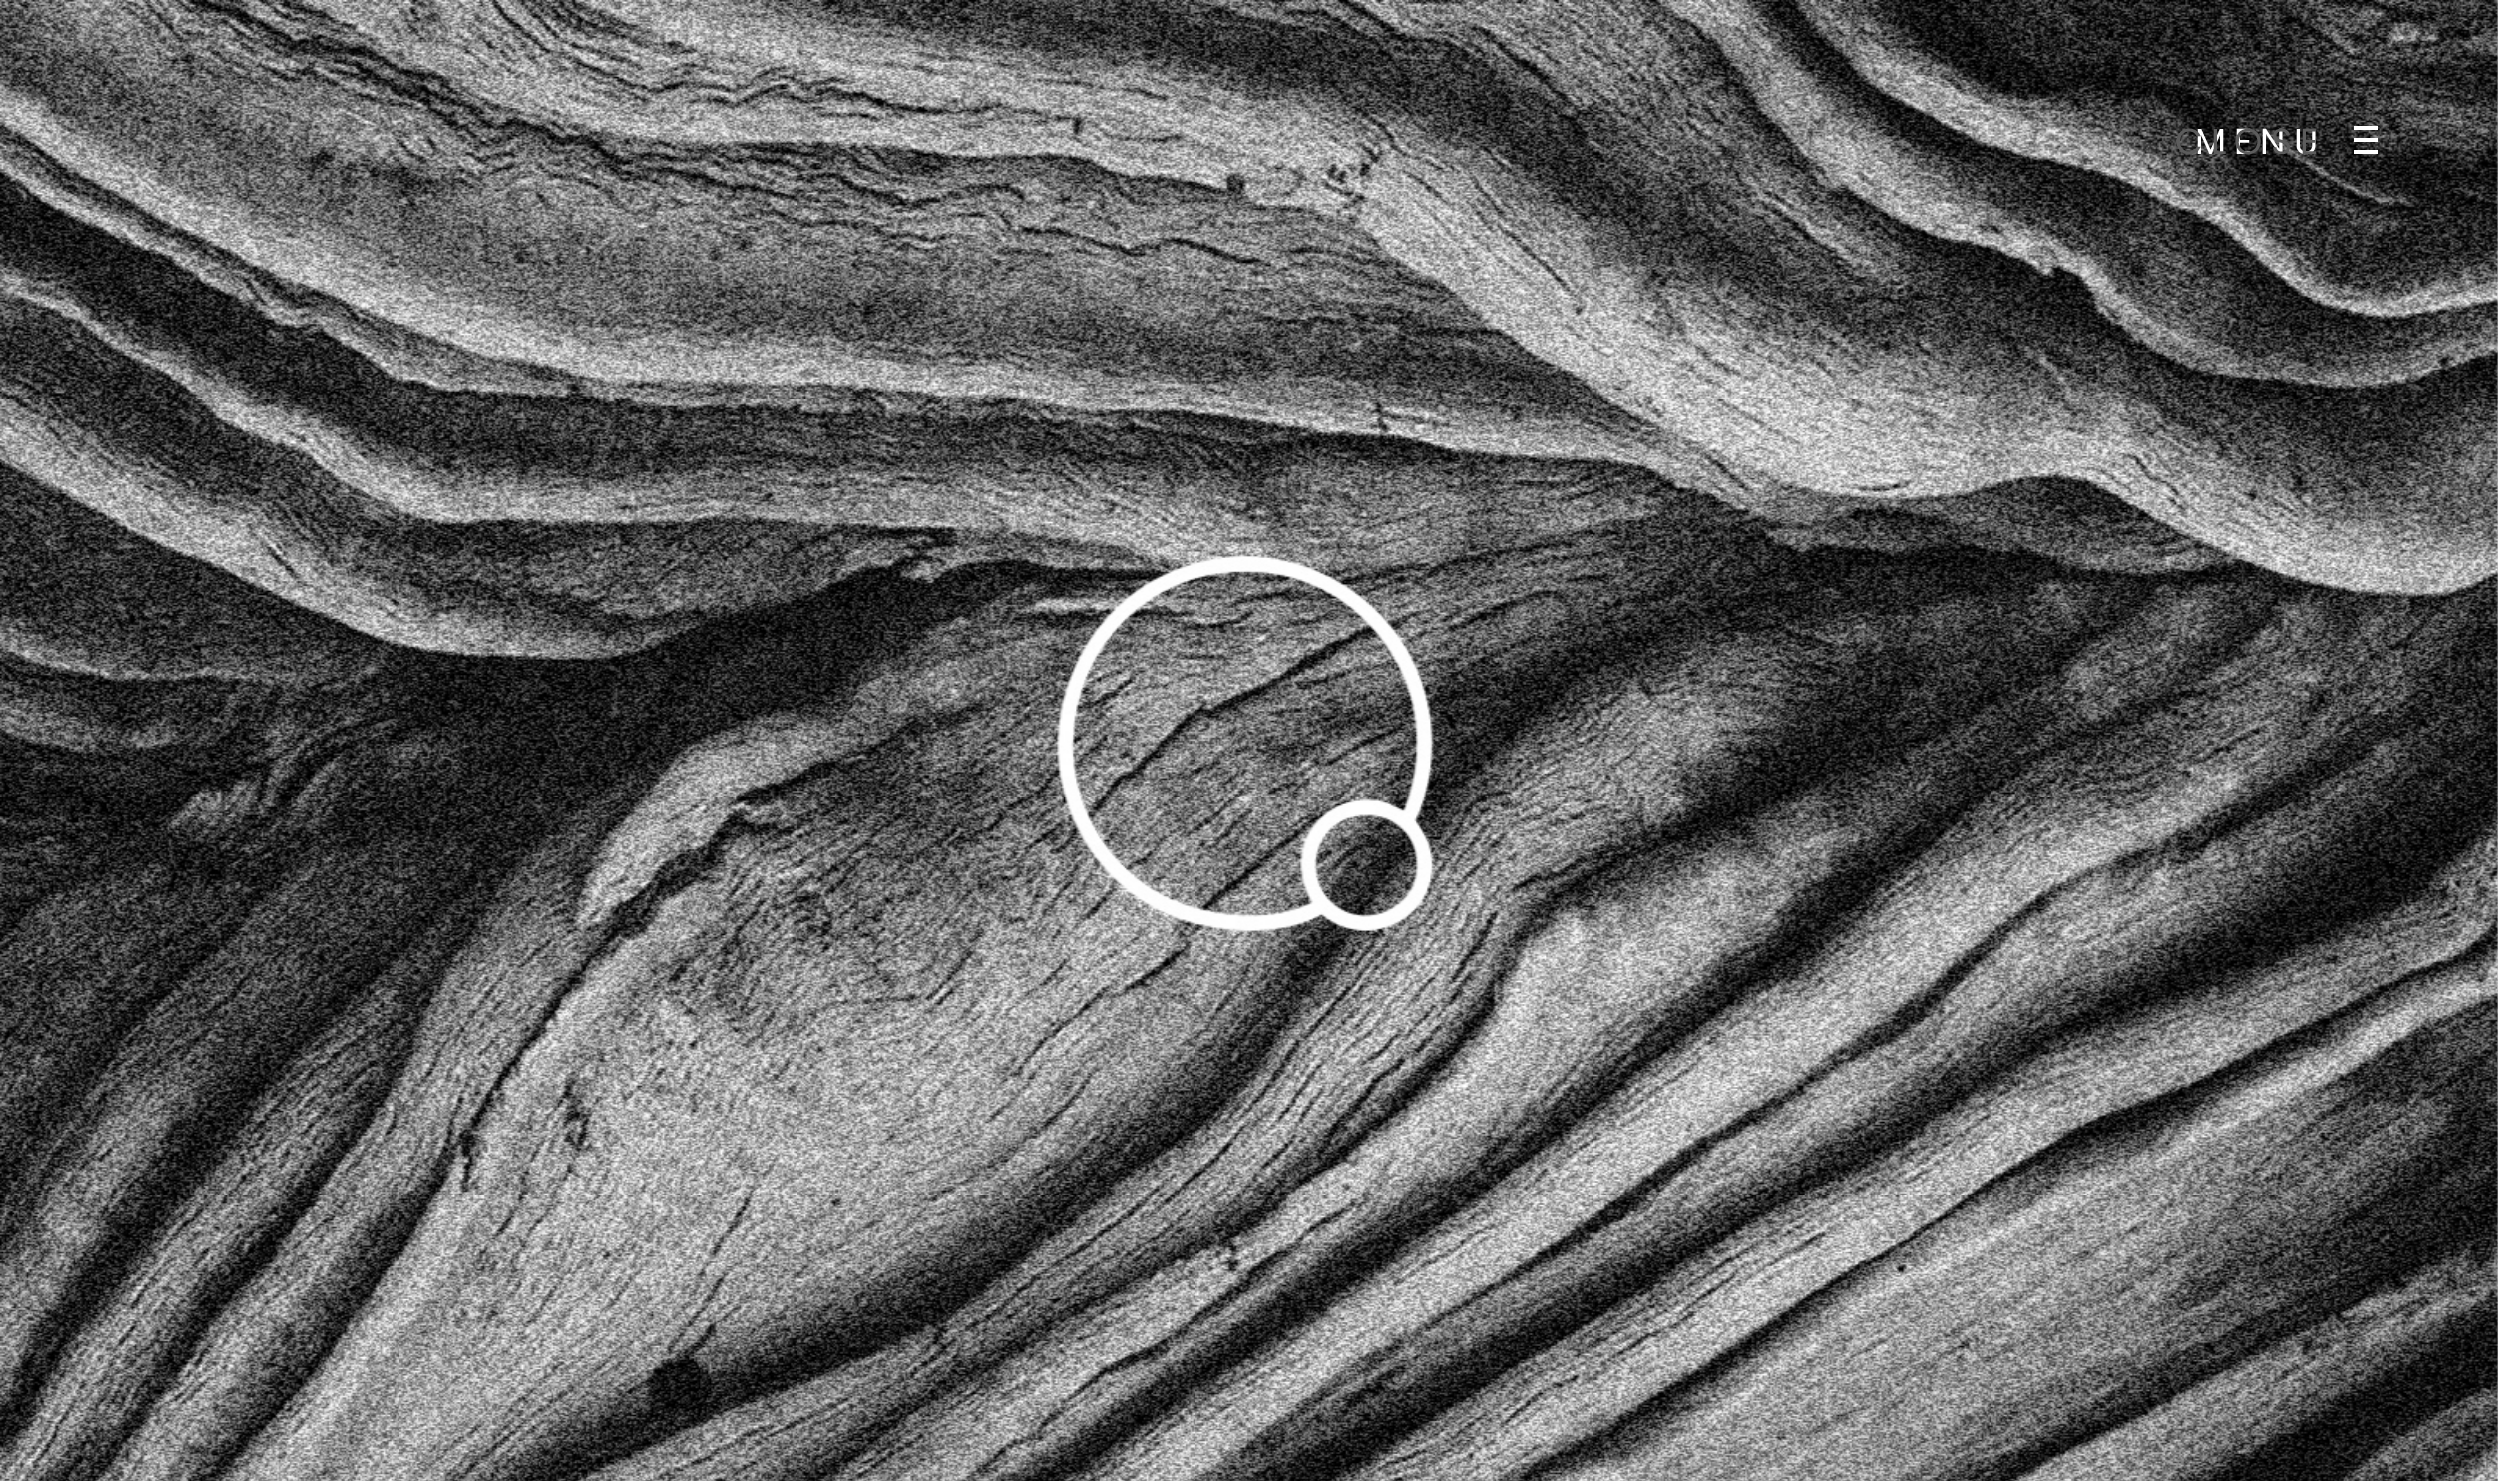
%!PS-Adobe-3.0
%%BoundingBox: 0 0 2498 1481
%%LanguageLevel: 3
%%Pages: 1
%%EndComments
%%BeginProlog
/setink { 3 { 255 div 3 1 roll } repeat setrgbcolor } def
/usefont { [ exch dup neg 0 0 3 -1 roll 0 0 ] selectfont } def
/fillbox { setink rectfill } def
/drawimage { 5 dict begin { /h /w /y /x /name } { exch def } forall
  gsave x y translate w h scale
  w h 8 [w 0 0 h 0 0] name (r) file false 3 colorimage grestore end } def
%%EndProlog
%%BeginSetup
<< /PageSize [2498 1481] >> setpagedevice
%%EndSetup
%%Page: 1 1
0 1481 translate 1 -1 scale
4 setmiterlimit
0 0 2498 1481 240 240 240 fillbox
(assets/img1.rgb) 0 0 2498 1481 drawimage
/Poppins-Regular 36 usefont
255 255 255 setink
2195 154 moveto 8 0 (MENU) ashow
92 92 92 setink
2175 154 moveto 8 0 (CLOSE) ashow
2354 126 24 4 255 255 255 fillbox
2354 138 24 4 255 255 255 fillbox
2354 150 24 4 255 255 255 fillbox
showpage
%%EOF
